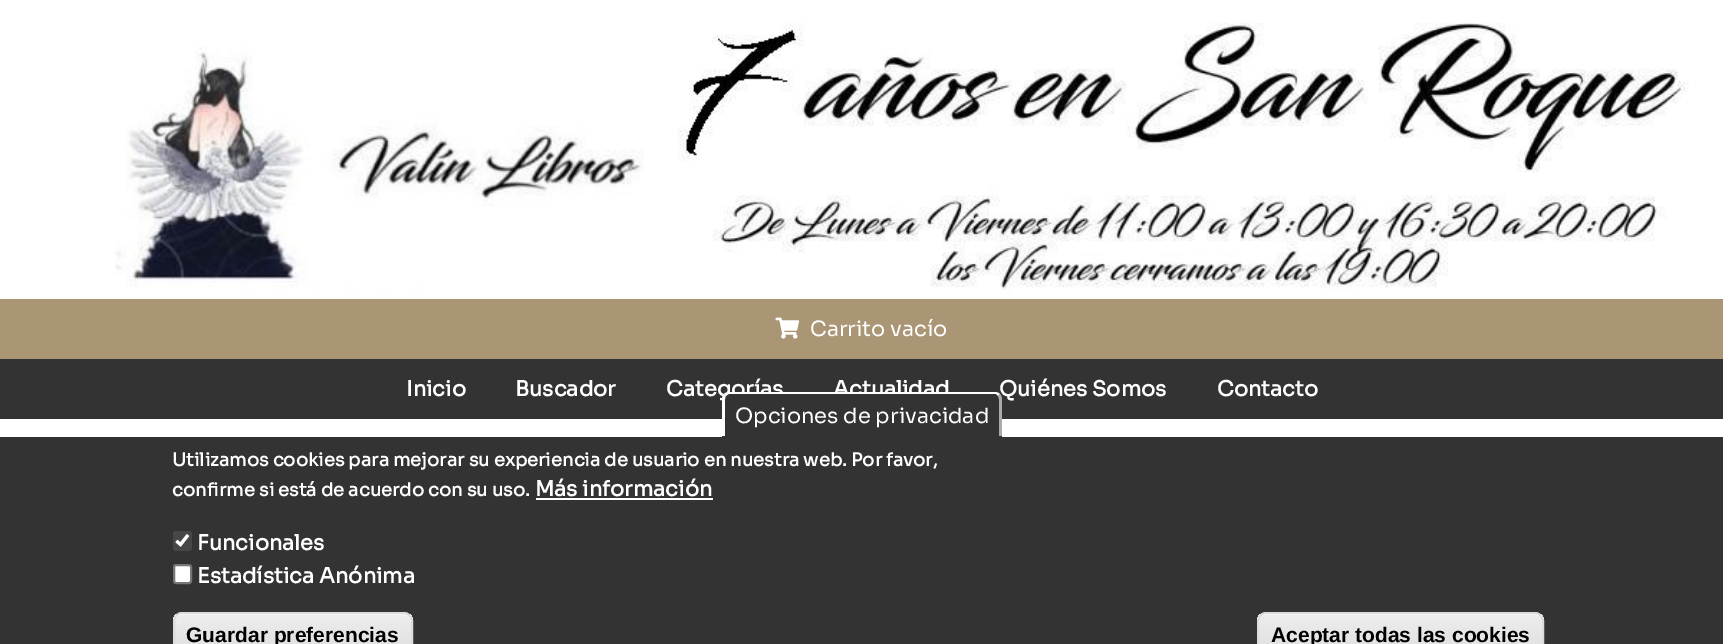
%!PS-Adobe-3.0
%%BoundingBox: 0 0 1723 644
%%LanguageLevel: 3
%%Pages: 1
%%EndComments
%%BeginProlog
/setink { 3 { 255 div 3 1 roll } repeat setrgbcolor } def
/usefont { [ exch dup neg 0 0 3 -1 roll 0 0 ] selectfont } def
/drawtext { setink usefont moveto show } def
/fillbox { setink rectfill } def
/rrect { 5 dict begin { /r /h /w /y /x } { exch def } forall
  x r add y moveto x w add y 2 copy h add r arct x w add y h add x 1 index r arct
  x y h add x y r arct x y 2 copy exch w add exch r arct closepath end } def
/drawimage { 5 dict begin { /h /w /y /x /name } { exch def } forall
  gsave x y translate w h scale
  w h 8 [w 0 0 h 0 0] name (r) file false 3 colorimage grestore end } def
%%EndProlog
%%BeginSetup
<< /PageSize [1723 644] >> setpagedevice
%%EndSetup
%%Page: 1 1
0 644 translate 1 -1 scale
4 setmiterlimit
0 0 1723 644 255 255 255 fillbox
(assets/img1.rgb) 115 23 1574 271 drawimage
0 299 1723 60 170 149 116 fillbox
(assets/img2.rgb) 775 317 25 22 drawimage
(Carrito vacío) 810 336 /Sora-Regular 21 255 255 255 drawtext
0 359 1723 60 51 51 51 fillbox
(Inicio) 406 396 /Sora-Bold 21 255 255 255 drawtext
(Buscador) 515 396 /Sora-Bold 21 255 255 255 drawtext
(Categorías) 666 396 /Sora-Bold 21 255 255 255 drawtext
(Actualidad) 833 396 /Sora-Bold 21 255 255 255 drawtext
(Quiénes Somos) 999 396 /Sora-Bold 21 255 255 255 drawtext
(Contacto) 1217 396 /Sora-Bold 21 255 255 255 drawtext
0 437 1723 207 51 51 51 fillbox
730 392 moveto 994 392 lineto 998.5 392 1002 395.5 1002 400 curveto 1002 437 lineto 722 437 lineto 722 400 lineto 722 395.5 725.5 392 730 392 curveto closepath fill
255 255 255 setink
729 392 moveto 995 392 lineto 997 392 999 393 1000 394 curveto 998 396 lineto 996 394 lineto 729 394 lineto 728 394 727 395 726 396 curveto 724 394 lineto 725 393 727 392 729 392 curveto closepath fill
170 170 170 setink
998 396 moveto 999 399 lineto 999 436 lineto 1002 436 lineto 1002 399 lineto 1002 397 1001 395 1000 394 curveto closepath fill
255 255 255 setink
724 394 moveto 726 396 lineto 725 397 725 398 725 399 curveto 725 436 lineto 722 436 lineto 722 399 lineto 722 397 723 395 724 394 curveto closepath fill
(Opciones de privacidad) 735 423 /Sora-Regular 21 255 255 255 drawtext
(Utilizamos cookies para mejorar su experiencia de usuario en nuestra web. Por favor,) 172 466 /Sora-Bold 18 255 255 255 drawtext
(confirme si está de acuerdo con su uso.) 172 496 /Sora-Bold 18 255 255 255 drawtext
(Más información) 535 496 /Sora-Bold 21 255 255 255 drawtext
536 498 177 2 255 255 255 fillbox
71 71 71 setink
173 531 19 20 3 rrect fill
255 255 255 setink
3.1 setlinewidth
176.5 541 moveto 180.5 544.5 lineto 188 535 lineto stroke
(Funcionales) 197 550 /Sora-Bold 21 255 255 255 drawtext
174 565 17 18 2 rrect gsave fill grestore
118 118 118 setink
2 setlinewidth
stroke
(Estadística Anónima) 197 583 /Sora-Bold 21 255 255 255 drawtext
gsave
173 612 240 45 9 rrect clip newpath
gsave 173 614 moveto 413 614 lineto 413 644 lineto 173 644 lineto closepath clip newpath
<< /ShadingType 2 /ColorSpace /DeviceRGB /Coords [293 614 293 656] /Extend [true true] /Function << /FunctionType 3 /Domain [0 1] /Functions [<< /FunctionType 2 /Domain [0 1] /C0 [0.929 0.929 0.929] /C1 [0.929 0.929 0.929] /N 1 >> << /FunctionType 2 /Domain [0 1] /C0 [0.929 0.929 0.929] /C1 [0.875 0.875 0.875] /N 1 >>] /Bounds [0.05] /Encode [0 1 0 1] >> >> shfill grestore
grestore
182 615 moveto 404 615 lineto 408 615 411 618 411 622 curveto 411 618 407 614 403 614 curveto 182 614 lineto 178 614 174 618 174 622 curveto 174 618 177 615 182 615 curveto closepath fill
220 220 220 setink
174 613 238 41 8 rrect stroke
(Guardar preferencias) 186 642 /LiberationSans-Bold 21 0 0 0 drawtext
gsave
1257 612 287 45 9 rrect clip newpath
gsave 1257 614 moveto 1544 614 lineto 1544 644 lineto 1257 644 lineto closepath clip newpath
<< /ShadingType 2 /ColorSpace /DeviceRGB /Coords [1400 614 1400 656] /Extend [true true] /Function << /FunctionType 3 /Domain [0 1] /Functions [<< /FunctionType 2 /Domain [0 1] /C0 [0.929 0.929 0.929] /C1 [0.929 0.929 0.929] /N 1 >> << /FunctionType 2 /Domain [0 1] /C0 [0.929 0.929 0.929] /C1 [0.875 0.875 0.875] /N 1 >>] /Bounds [0.05] /Encode [0 1 0 1] >> >> shfill grestore
grestore
255 255 255 setink
1266 615 moveto 1534 615 lineto 1539 615 1542 618 1542 622 curveto 1542 618 1538 614 1534 614 curveto 1267 614 lineto 1265 614 1263 615 1261 616 curveto 1263 616 1264 615 1266 615 curveto closepath fill
220 220 220 setink
1258 613 285 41 8 rrect stroke
(Aceptar todas las cookies) 1271 642 /LiberationSans-Bold 21 0 0 0 drawtext
showpage
%%EOF
